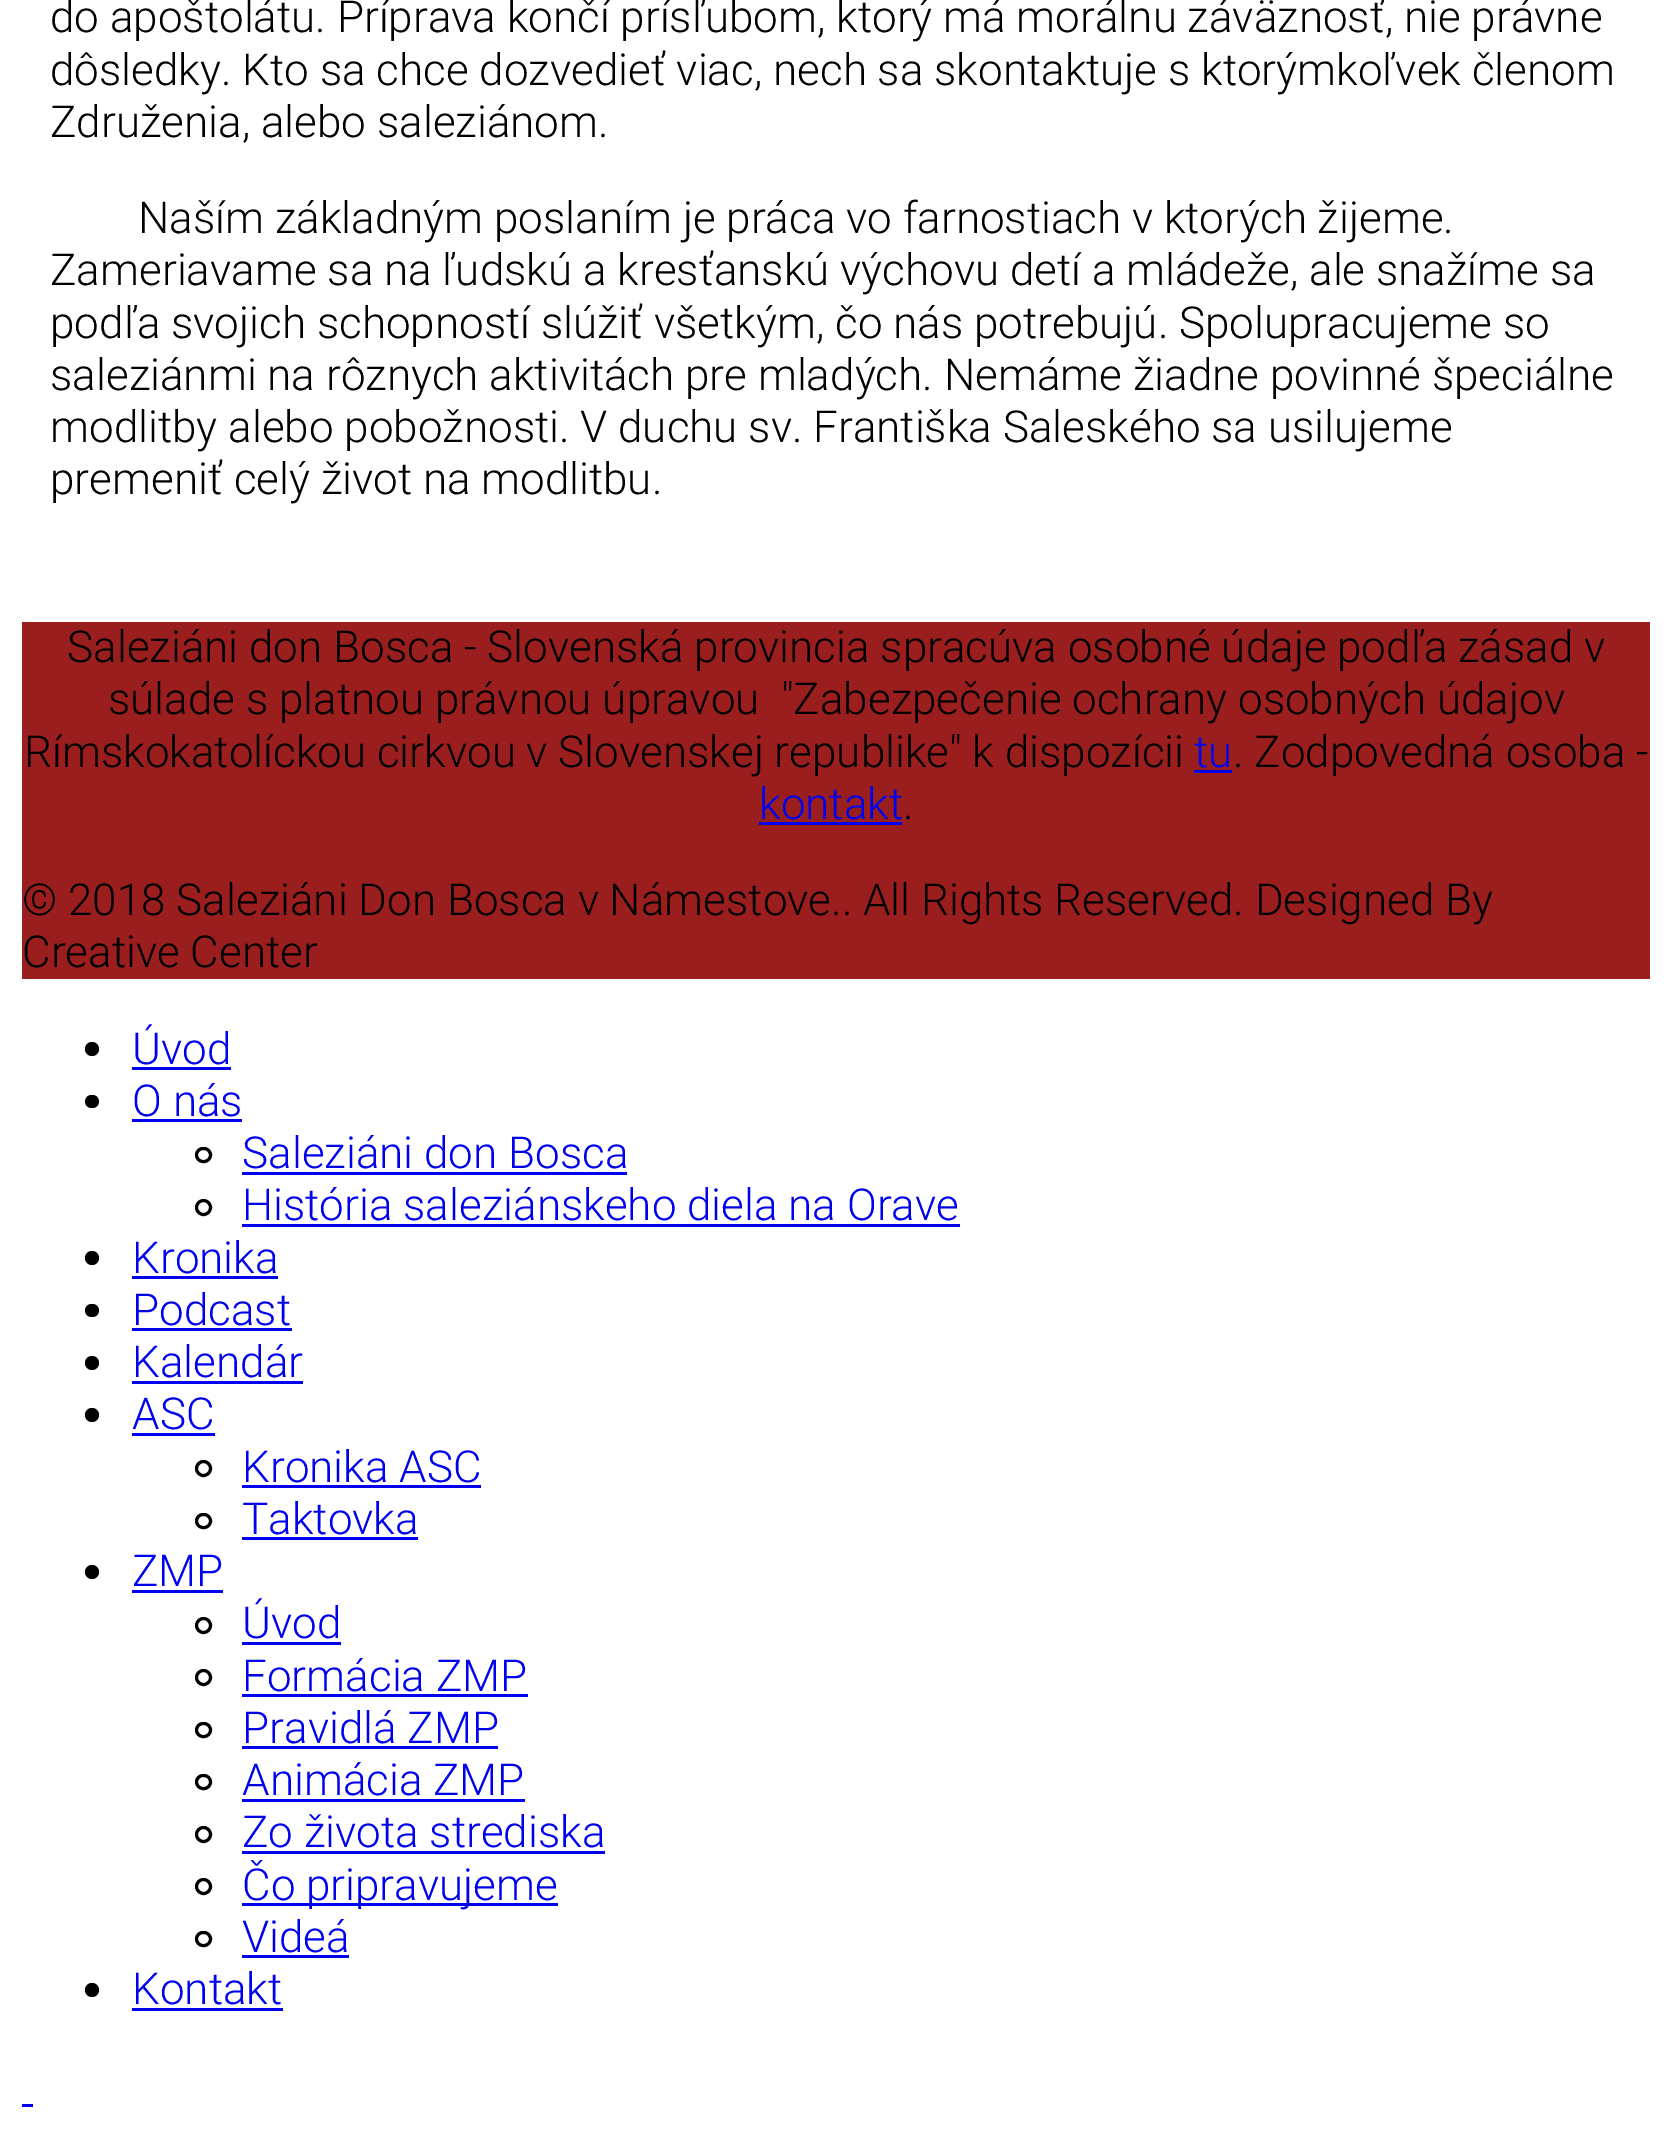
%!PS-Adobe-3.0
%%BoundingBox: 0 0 1670 2134
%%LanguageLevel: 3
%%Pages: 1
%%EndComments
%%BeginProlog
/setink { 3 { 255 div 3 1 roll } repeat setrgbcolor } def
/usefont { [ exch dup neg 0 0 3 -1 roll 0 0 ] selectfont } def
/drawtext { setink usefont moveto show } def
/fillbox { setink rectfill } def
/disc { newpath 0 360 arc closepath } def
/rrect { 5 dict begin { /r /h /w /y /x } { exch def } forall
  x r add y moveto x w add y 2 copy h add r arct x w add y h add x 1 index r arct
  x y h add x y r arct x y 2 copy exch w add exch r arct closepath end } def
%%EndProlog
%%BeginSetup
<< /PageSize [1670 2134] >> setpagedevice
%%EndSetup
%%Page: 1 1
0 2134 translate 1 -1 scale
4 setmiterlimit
0 0 1670 2134 255 255 255 fillbox
(do apoštolátu. Príprava končí prísľubom, ktorý má morálnu záväznosť, nie právne) 50 32 /Roboto-Light 44 0 0 0 drawtext
(dôsledky. Kto sa chce dozvedieť viac, nech sa skontaktuje s ktorýmkoľvek členom) 50 85 /Roboto-Light 44 0 0 0 drawtext
(Združenia, alebo saleziánom.) 50 137 /Roboto-Light 44 0 0 0 drawtext
(Naším základným poslaním je práca vo farnostiach v ktorých žijeme.) 138 233 /Roboto-Light 44 0 0 0 drawtext
(Zameriavame sa na ľudskú a kresťanskú výchovu detí a mládeže, ale snažíme sa) 50 285 /Roboto-Light 44 0 0 0 drawtext
(podľa svojich schopností slúžiť všetkým, čo nás potrebujú. Spolupracujeme so) 50 338 /Roboto-Light 44 0 0 0 drawtext
(saleziánmi na rôznych aktivitách pre mladých. Nemáme žiadne povinné špeciálne) 50 390 /Roboto-Light 44 0 0 0 drawtext
(modlitby alebo pobožnosti. V duchu sv. Františka Saleského sa usilujeme) 50 442 /Roboto-Light 44 0 0 0 drawtext
(premeniť celý život na modlitbu.) 50 494 /Roboto-Light 44 0 0 0 drawtext
22 622 1628 357 155 30 30 fillbox
(Saleziáni don Bosca - Slovenská provincia spracúva osobné údaje podľa zásad v) 67 662 /Roboto-Light 44 0 0 0 drawtext
(súlade s platnou právnou úpravou  "Zabezpečenie ochrany osobných údajov) 108 714 /Roboto-Light 44 0 0 0 drawtext
(Rímskokatolíckou cirkvou v Slovenskej republike" k dispozícii) 24 767 /Roboto-Light 44 0 0 0 drawtext
(tu) 1194 767 /Roboto-Light 44 0 0 238 drawtext
1194 770 38 3 0 0 238 fillbox
(. Zodpovedná osoba -) 1233 767 /Roboto-Light 44 0 0 0 drawtext
(kontakt) 759 819 /Roboto-Light 44 0 0 238 drawtext
759 822 143 3 0 0 238 fillbox
(.) 903 819 /Roboto-Light 44 0 0 0 drawtext
(© 2018 Saleziáni Don Bosca v Námestove.. All Rights Reserved. Designed By) 22 915 /Roboto-Light 44 0 0 0 drawtext
(Creative Center) 22 967 /Roboto-Light 44 0 0 0 drawtext
92 1049 7 disc fill
(Úvod) 132 1064 /Roboto-Light 44 0 0 238 drawtext
132 1067 99 3 0 0 238 fillbox
0 0 0 setink
85 1095 14 13 6.5 rrect fill
(O nás) 132 1116 /Roboto-Light 44 0 0 238 drawtext
132 1119 110 3 0 0 238 fillbox
0 0 0 setink
3 setlinewidth
196.5 1148.5 14 13 6.5 rrect stroke
(Saleziáni don Bosca) 242 1168 /Roboto-Light 44 0 0 238 drawtext
242 1172 385 3 0 0 238 fillbox
0 0 0 setink
203.5 1207.5 7 disc stroke
(História saleziánskeho diela na Orave) 242 1220 /Roboto-Light 44 0 0 238 drawtext
242 1224 718 3 0 0 238 fillbox
0 0 0 setink
92 1258 7 disc fill
(Kronika) 132 1273 /Roboto-Light 44 0 0 238 drawtext
132 1276 146 3 0 0 238 fillbox
0 0 0 setink
85 1304 14 13 6.5 rrect fill
(Podcast) 132 1325 /Roboto-Light 44 0 0 238 drawtext
132 1328 160 3 0 0 238 fillbox
0 0 0 setink
92 1363 7 disc fill
(Kalendár) 132 1377 /Roboto-Light 44 0 0 238 drawtext
132 1381 171 3 0 0 238 fillbox
0 0 0 setink
92 1415 7 disc fill
(ASC) 132 1429 /Roboto-Light 44 0 0 238 drawtext
132 1433 83 3 0 0 238 fillbox
0 0 0 setink
203.5 1468.5 7 disc stroke
(Kronika ASC) 242 1482 /Roboto-Light 44 0 0 238 drawtext
242 1485 239 3 0 0 238 fillbox
0 0 0 setink
196.5 1514.5 14 13 6.5 rrect stroke
(Taktovka) 242 1534 /Roboto-Light 44 0 0 238 drawtext
242 1537 176 3 0 0 238 fillbox
0 0 0 setink
92 1572 7 disc fill
(ZMP) 132 1586 /Roboto-Light 44 0 0 238 drawtext
132 1590 91 3 0 0 238 fillbox
0 0 0 setink
203.5 1625.5 7 disc stroke
(Úvod) 242 1638 /Roboto-Light 44 0 0 238 drawtext
242 1642 99 3 0 0 238 fillbox
0 0 0 setink
203.5 1677.5 7 disc stroke
(Formácia ZMP) 242 1691 /Roboto-Light 44 0 0 238 drawtext
242 1694 286 3 0 0 238 fillbox
0 0 0 setink
196.5 1723.5 14 13 6.5 rrect stroke
(Pravidlá ZMP) 242 1743 /Roboto-Light 44 0 0 238 drawtext
242 1746 256 3 0 0 238 fillbox
0 0 0 setink
196.5 1775.5 14 13 6.5 rrect stroke
(Animácia ZMP) 242 1795 /Roboto-Light 44 0 0 238 drawtext
242 1799 283 3 0 0 238 fillbox
0 0 0 setink
203.5 1834.5 7 disc stroke
(Zo života strediska) 242 1847 /Roboto-Light 44 0 0 238 drawtext
242 1851 363 3 0 0 238 fillbox
0 0 0 setink
203.5 1886.5 7 disc stroke
242 1903 316 3 0 0 238 fillbox
(Čo pripravujeme) 242 1900 /Roboto-Light 44 0 0 238 drawtext
0 0 0 setink
196.5 1932.5 14 13 6.5 rrect stroke
(Videá) 242 1952 /Roboto-Light 44 0 0 238 drawtext
242 1955 107 3 0 0 238 fillbox
0 0 0 setink
92 1990 7 disc fill
(Kontakt) 132 2004 /Roboto-Light 44 0 0 238 drawtext
132 2008 151 3 0 0 238 fillbox
22 2104 11 3 0 0 238 fillbox
showpage
%%EOF
